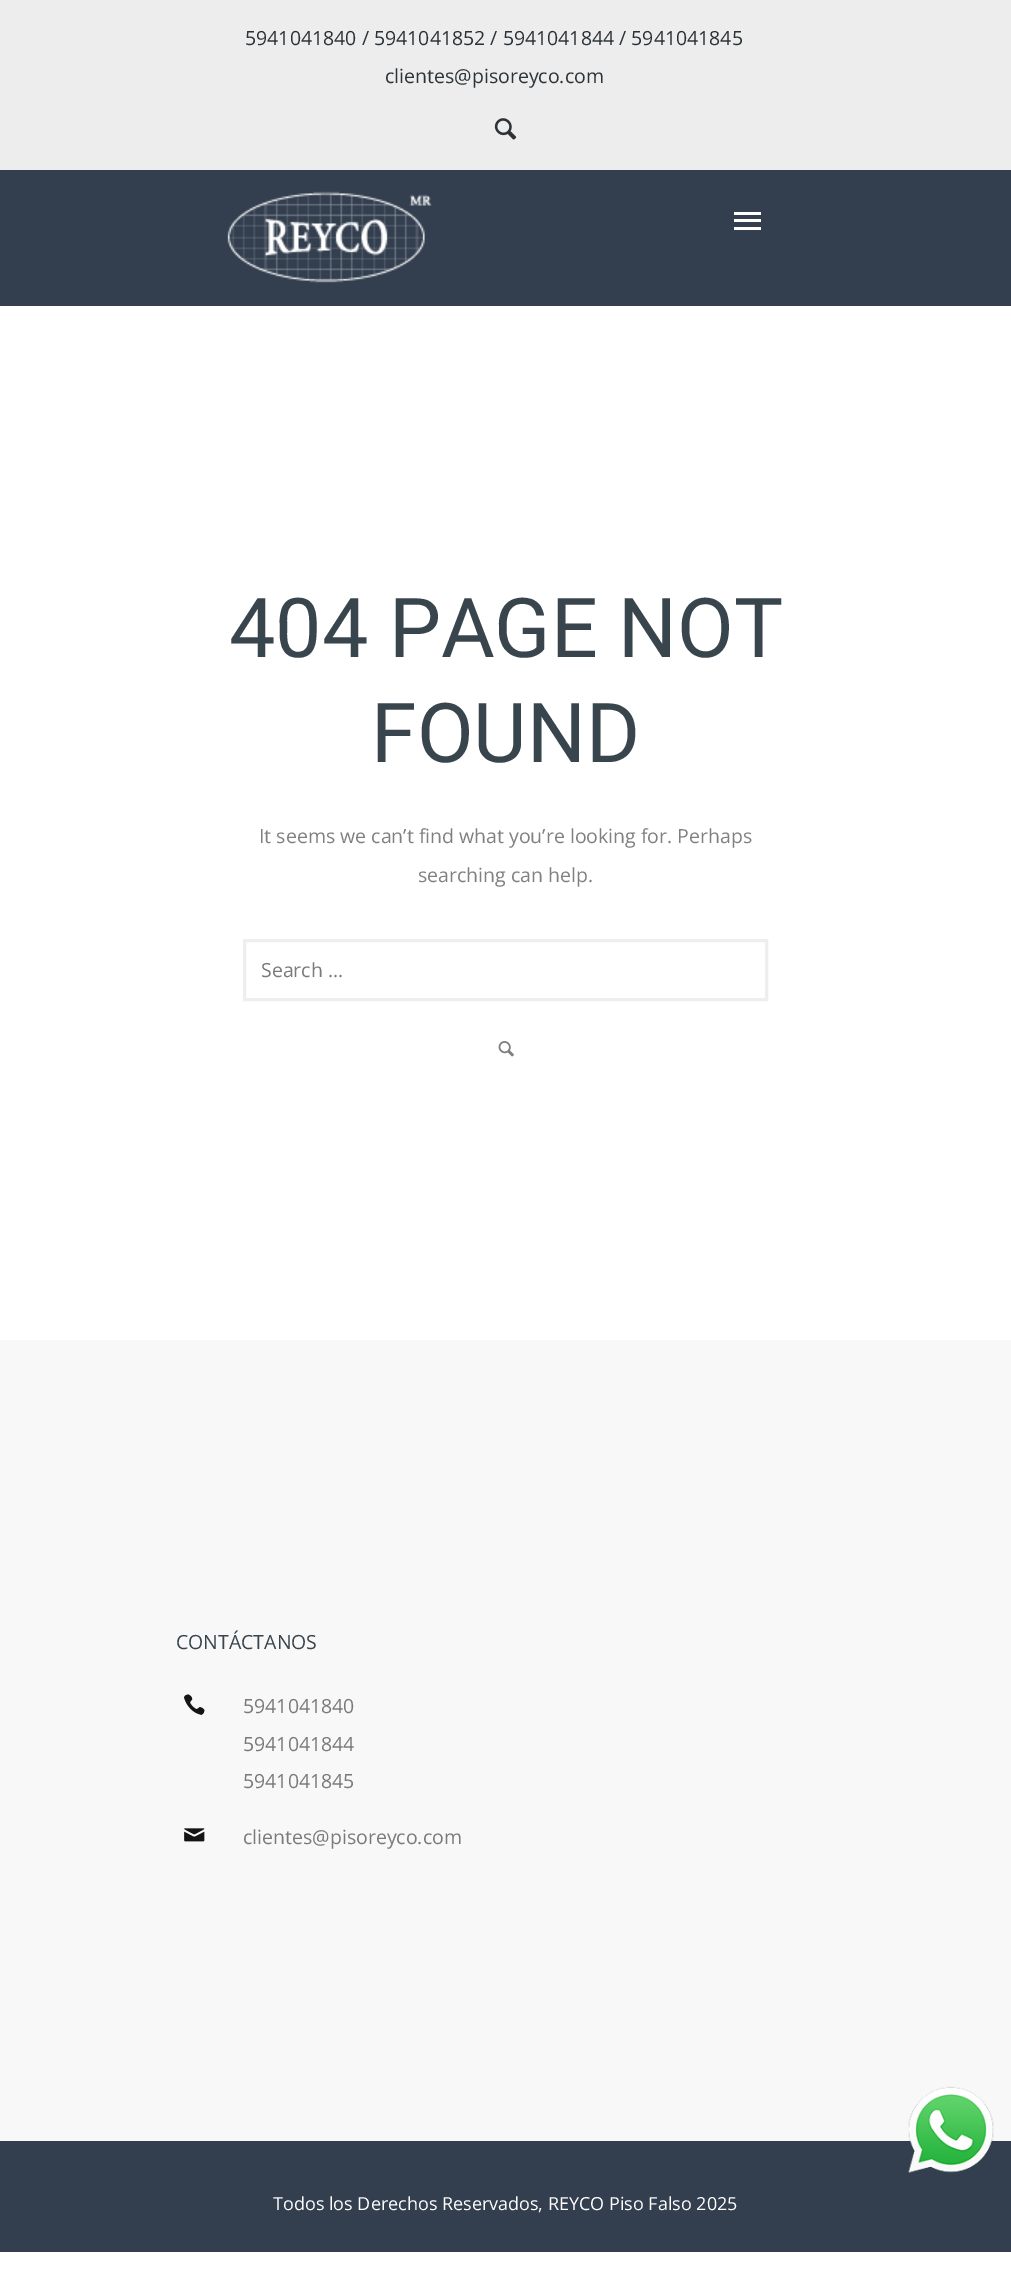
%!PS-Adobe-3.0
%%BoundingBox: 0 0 1011 2279
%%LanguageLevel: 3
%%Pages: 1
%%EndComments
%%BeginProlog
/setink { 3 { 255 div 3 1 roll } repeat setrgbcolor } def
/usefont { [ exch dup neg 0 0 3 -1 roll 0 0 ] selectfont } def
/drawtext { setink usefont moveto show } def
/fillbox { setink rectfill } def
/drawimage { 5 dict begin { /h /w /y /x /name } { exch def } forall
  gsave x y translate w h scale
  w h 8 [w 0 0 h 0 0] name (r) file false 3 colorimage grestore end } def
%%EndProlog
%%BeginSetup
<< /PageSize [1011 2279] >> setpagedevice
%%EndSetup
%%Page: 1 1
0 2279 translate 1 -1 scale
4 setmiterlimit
0 0 1011 2279 255 255 255 fillbox
0 0 1011 170 237 237 237 fillbox
(5941041840 / 5941041852 / 5941041844 / 5941041845) 245 45 /OpenSans-Regular 19.5 44 51 56 drawtext
(clientes@pisoreyco.com) 385 83 /OpenSans-Regular 19.5 44 51 56 drawtext
(assets/img1.rgb) 494 118 23 22 drawimage
0 170 1011 136 51 63 79 fillbox
(assets/img2.rgb) 227 191 205 92 drawimage
734 219 27 3 255 255 255 fillbox
734 212 27 3 255 255 255 fillbox
734 227 27 3 255 255 255 fillbox
(404 PAGE NOT) 229 657 /Roboto-Regular 82.5 57 69 77 drawtext
(FOUND) 371 762 /Roboto-Regular 82.5 57 69 77 drawtext
(It seems we can’t find what you’re looking for. Perhaps) 259 843 /OpenSans-Regular 19.5 128 128 128 drawtext
(searching can help.) 418 882 /OpenSans-Regular 19.5 128 128 128 drawtext
238 238 238 setink
3 setlinewidth
244.5 940.5 522 59 rectstroke
(Search ...) 261 977 /OpenSans-Regular 19.5 122 122 122 drawtext
(assets/img3.rgb) 498 1041 16 16 drawimage
0 1340 1011 801 248 248 249 fillbox
(CONTÁCTANOS) 176 1649 /OpenSans-Regular 19.5 57 69 77 drawtext
(assets/img4.rgb) 183 1694 22 21 drawimage
(5941041840) 243 1713 /OpenSans-Regular 19.5 122 122 122 drawtext
(5941041844) 243 1751 /OpenSans-Regular 19.5 122 122 122 drawtext
(5941041845) 243 1788 /OpenSans-Regular 19.5 122 122 122 drawtext
(assets/img5.rgb) 184 1828 21 14 drawimage
(clientes@pisoreyco.com) 243 1844 /OpenSans-Regular 19.5 122 122 122 drawtext
0 2141 1011 111 51 63 79 fillbox
(Todos los Derechos Reservados, REYCO Piso Falso 2025) 273 2210 /OpenSans-Regular 18 255 255 255 drawtext
(assets/img6.rgb) 908 2086 86 87 drawimage
showpage
%%EOF
